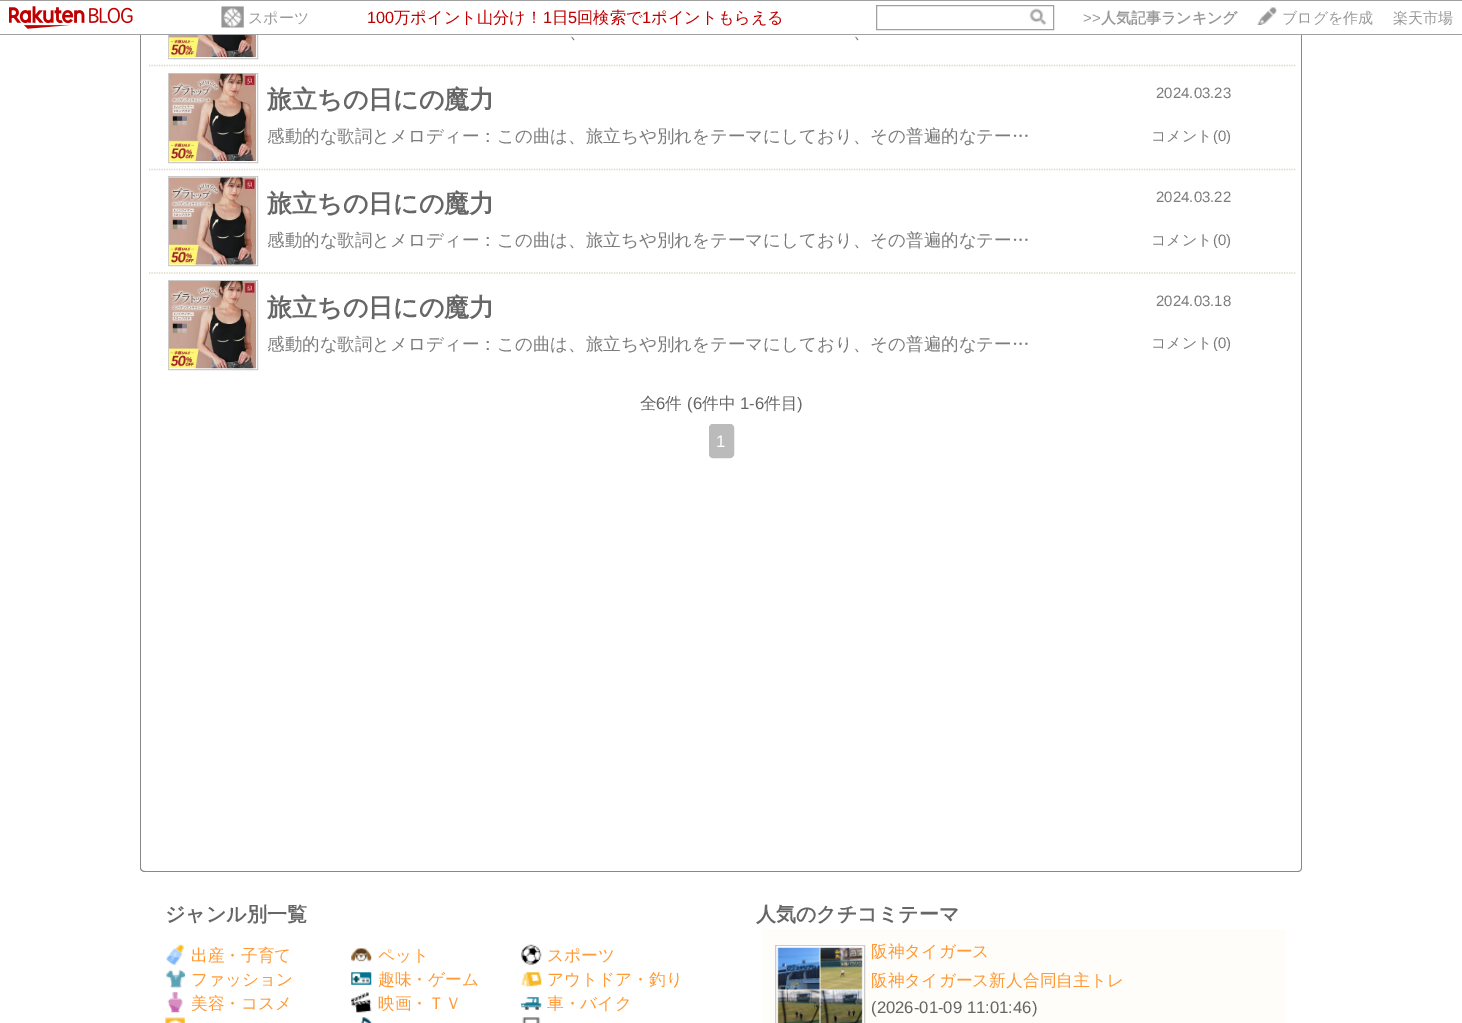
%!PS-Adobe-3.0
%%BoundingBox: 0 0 1462 1023
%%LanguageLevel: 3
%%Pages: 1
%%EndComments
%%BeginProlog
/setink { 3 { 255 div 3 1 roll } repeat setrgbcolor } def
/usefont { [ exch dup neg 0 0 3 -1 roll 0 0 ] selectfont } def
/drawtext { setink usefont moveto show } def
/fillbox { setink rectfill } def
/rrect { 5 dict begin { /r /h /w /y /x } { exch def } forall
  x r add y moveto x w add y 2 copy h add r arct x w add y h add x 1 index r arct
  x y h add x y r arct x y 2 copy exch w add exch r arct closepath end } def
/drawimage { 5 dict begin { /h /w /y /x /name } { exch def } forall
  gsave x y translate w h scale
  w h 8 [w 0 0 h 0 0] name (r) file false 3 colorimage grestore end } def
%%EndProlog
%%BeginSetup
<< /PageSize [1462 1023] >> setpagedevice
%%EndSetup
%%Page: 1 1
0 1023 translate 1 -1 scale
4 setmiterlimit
0 0 1462 1023 255 255 255 fillbox
136 136 136 setink
140 -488 moveto 1302 -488 lineto 1302 868 lineto 1302 870 1300 872 1298 872 curveto 145 872 lineto 142 872 140 870 140 868 curveto closepath 141 -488 moveto 1301 -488 lineto 1301 868 lineto 1301 870 1300 871 1298 871 curveto 145 871 lineto 143 871 141 870 141 868 curveto closepath eofill
204 204 204 setink
168.5 -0.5 89 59 rectstroke
140 1 1162 33 255 255 255 fillbox
0 0 1462 1 161 161 161 fillbox
0 34 1462 1 161 161 161 fillbox
(assets/img1.rgb) 9 6 124 23 drawimage
(assets/img2.rgb) 221 6 23 22 drawimage
(スポーツ) 248 23 /WenQuanYiZenHei-Medium 15 153 153 153 drawtext
(100) 367 23 /LiberationSans-Regular 16.25 191 0 0 drawtext
(万ポイント山分け！) 394 23 /WenQuanYiZenHei-Medium 16.25 191 0 0 drawtext
(1) 543 23 /LiberationSans-Regular 16.25 191 0 0 drawtext
(日) 552 23 /WenQuanYiZenHei-Medium 16.25 191 0 0 drawtext
(5) 568 23 /LiberationSans-Regular 16.25 191 0 0 drawtext
(回検索で) 577 23 /WenQuanYiZenHei-Medium 16.25 191 0 0 drawtext
(1) 642 23 /LiberationSans-Regular 16.25 191 0 0 drawtext
(ポイントもらえる) 651 23 /WenQuanYiZenHei-Medium 16.25 191 0 0 drawtext
161 161 161 setink
876.5 5.5 177 24 rectstroke
(assets/img3.rgb) 1029 8 18 18 drawimage
(>>) 1083 23 /LiberationSans-Regular 15 153 153 153 drawtext
(人気記事ランキング) 1101 23 /WenQuanYiZenHei-Bold 15 153 153 153 drawtext
(assets/img4.rgb) 1257 7 20 18 drawimage
gsave
1083 5 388 20 rectclip
(ブログを作成) 1282 23 /WenQuanYiZenHei-Medium 15 153 153 153 drawtext
grestore
(楽天市場) 1393 23 /WenQuanYiZenHei-Medium 15 153 153 153 drawtext
218 213 194 setink
1.2 setlinewidth
[1.25 1.25] 0 setdash
149 65.5 moveto 1296 65.5 lineto stroke
(assets/img5.rgb) 168 35 89 23 drawimage
(、) 569 38 /WenQuanYiZenHei-Medium 17.5 124 124 124 drawtext
(、) 853 38 /WenQuanYiZenHei-Medium 17.5 124 124 124 drawtext
218 213 194 setink
149 169.5 moveto 1296 169.5 lineto stroke
204 204 204 setink
1 setlinewidth
[] 0 setdash
168.5 73.5 89 89 rectstroke
(assets/img6.rgb) 168 73 89 88 drawimage
(旅立ちの日にの魔力) 267 108 /WenQuanYiZenHei-Bold 25 102 102 102 drawtext
(感動的な歌詞とメロディー：この曲は、旅立ちや別れをテーマにしており、その普遍的なテー…) 267 142 /WenQuanYiZenHei-Medium 17.5 124 124 124 drawtext
(2024.03.23) 1156 98 /LiberationSans-Regular 15 124 124 124 drawtext
(コメント) 1151 141 /WenQuanYiZenHei-Medium 15 124 124 124 drawtext
(\(0\)) 1213 141 /LiberationSans-Regular 15 124 124 124 drawtext
218 213 194 setink
1.2 setlinewidth
[1.25 1.25] 0 setdash
149 273 moveto 1296 273 lineto stroke
204 204 204 setink
1 setlinewidth
[] 0 setdash
168.5 176.5 89 89 rectstroke
(assets/img7.rgb) 168 177 89 88 drawimage
(旅立ちの日にの魔力) 267 212 /WenQuanYiZenHei-Bold 25 102 102 102 drawtext
(感動的な歌詞とメロディー：この曲は、旅立ちや別れをテーマにしており、その普遍的なテー…) 267 246 /WenQuanYiZenHei-Medium 17.5 124 124 124 drawtext
(2024.03.22) 1156 202 /LiberationSans-Regular 15 124 124 124 drawtext
(コメント) 1151 245 /WenQuanYiZenHei-Medium 15 124 124 124 drawtext
(\(0\)) 1213 245 /LiberationSans-Regular 15 124 124 124 drawtext
204 204 204 setink
168.5 280.5 89 89 rectstroke
(assets/img8.rgb) 168 281 89 88 drawimage
(旅立ちの日にの魔力) 267 316 /WenQuanYiZenHei-Bold 25 102 102 102 drawtext
(感動的な歌詞とメロディー：この曲は、旅立ちや別れをテーマにしており、その普遍的なテー…) 267 350 /WenQuanYiZenHei-Medium 17.5 124 124 124 drawtext
(2024.03.18) 1156 306 /LiberationSans-Regular 15 124 124 124 drawtext
(コメント) 1151 348 /WenQuanYiZenHei-Medium 15 124 124 124 drawtext
(\(0\)) 1213 348 /LiberationSans-Regular 15 124 124 124 drawtext
(全) 640 409 /WenQuanYiZenHei-Medium 16.7 102 102 102 drawtext
(6) 656 409 /LiberationSans-Regular 16.7 102 102 102 drawtext
(件) 665 409 /WenQuanYiZenHei-Medium 16.7 102 102 102 drawtext
(\(6) 687 409 /LiberationSans-Regular 16.7 102 102 102 drawtext
(件中) 702 409 /WenQuanYiZenHei-Medium 16.7 102 102 102 drawtext
(1-6) 740 409 /LiberationSans-Regular 16.7 102 102 102 drawtext
(件目) 764 409 /WenQuanYiZenHei-Medium 16.7 102 102 102 drawtext
(\)) 797 409 /LiberationSans-Regular 16.7 102 102 102 drawtext
187 187 187 setink
709.5 424.5 24 33 3.5 rrect gsave fill grestore
stroke
(1) 716 447 /LiberationSans-Regular 16.7 255 255 255 drawtext
(ジャンル別一覧) 165 921 /WenQuanYiZenHei-Bold 20 102 102 102 drawtext
(assets/img9.rgb) 166 944 18 21 drawimage
(出産・子育て) 191 961 /WenQuanYiZenHei-Medium 16.7 255 153 51 drawtext
(assets/img10.rgb) 166 969 19 19 drawimage
(ファッション) 191 985 /WenQuanYiZenHei-Medium 16.7 255 153 51 drawtext
(assets/img11.rgb) 167 992 16 21 drawimage
(美容・コスメ) 191 1009 /WenQuanYiZenHei-Medium 16.7 255 153 51 drawtext
(assets/img12.rgb) 165 1017 20 6 drawimage
(assets/img13.rgb) 351 948 21 14 drawimage
(ペット) 378 961 /WenQuanYiZenHei-Medium 16.7 255 153 51 drawtext
(assets/img14.rgb) 351 972 21 13 drawimage
(趣味・ゲーム) 378 985 /WenQuanYiZenHei-Medium 16.7 255 153 51 drawtext
(assets/img15.rgb) 351 992 21 21 drawimage
(映画・ＴＶ) 378 1009 /WenQuanYiZenHei-Medium 16.7 255 153 51 drawtext
(assets/img16.rgb) 361 1017 11 6 drawimage
(assets/img17.rgb) 521 944 21 21 drawimage
(スポーツ) 547 961 /WenQuanYiZenHei-Medium 16.7 255 153 51 drawtext
(assets/img18.rgb) 521 972 21 16 drawimage
(アウトドア・釣り) 547 985 /WenQuanYiZenHei-Medium 16.7 255 153 51 drawtext
(assets/img19.rgb) 521 997 21 13 drawimage
(車・バイク) 547 1009 /WenQuanYiZenHei-Medium 16.7 255 153 51 drawtext
(assets/img20.rgb) 522 1017 19 6 drawimage
(人気のクチコミテーマ) 756 921 /WenQuanYiZenHei-Bold 20 102 102 102 drawtext
763 929 523 94 255 253 250 fillbox
204 204 204 setink
775.5 945.5 89 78 rectstroke
(assets/img21.rgb) 777 946 86 77 drawimage
(阪神タイガース) 871 957 /WenQuanYiZenHei-Medium 16.7 255 153 51 drawtext
(阪神タイガース新人合同自主トレ) 871 986 /WenQuanYiZenHei-Medium 16.7 255 153 51 drawtext
(\(2026-01-09 11:01:46\)) 871 1013 /LiberationSans-Regular 16.7 102 102 102 drawtext
showpage
%%EOF
